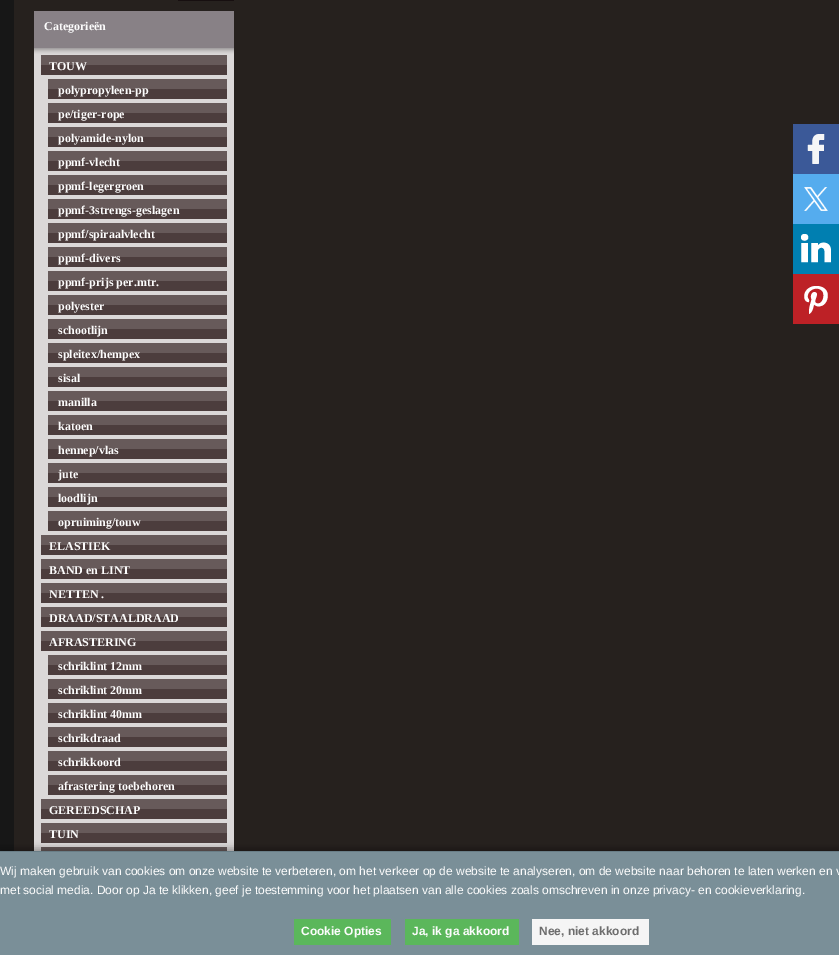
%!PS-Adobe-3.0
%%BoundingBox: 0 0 839 955
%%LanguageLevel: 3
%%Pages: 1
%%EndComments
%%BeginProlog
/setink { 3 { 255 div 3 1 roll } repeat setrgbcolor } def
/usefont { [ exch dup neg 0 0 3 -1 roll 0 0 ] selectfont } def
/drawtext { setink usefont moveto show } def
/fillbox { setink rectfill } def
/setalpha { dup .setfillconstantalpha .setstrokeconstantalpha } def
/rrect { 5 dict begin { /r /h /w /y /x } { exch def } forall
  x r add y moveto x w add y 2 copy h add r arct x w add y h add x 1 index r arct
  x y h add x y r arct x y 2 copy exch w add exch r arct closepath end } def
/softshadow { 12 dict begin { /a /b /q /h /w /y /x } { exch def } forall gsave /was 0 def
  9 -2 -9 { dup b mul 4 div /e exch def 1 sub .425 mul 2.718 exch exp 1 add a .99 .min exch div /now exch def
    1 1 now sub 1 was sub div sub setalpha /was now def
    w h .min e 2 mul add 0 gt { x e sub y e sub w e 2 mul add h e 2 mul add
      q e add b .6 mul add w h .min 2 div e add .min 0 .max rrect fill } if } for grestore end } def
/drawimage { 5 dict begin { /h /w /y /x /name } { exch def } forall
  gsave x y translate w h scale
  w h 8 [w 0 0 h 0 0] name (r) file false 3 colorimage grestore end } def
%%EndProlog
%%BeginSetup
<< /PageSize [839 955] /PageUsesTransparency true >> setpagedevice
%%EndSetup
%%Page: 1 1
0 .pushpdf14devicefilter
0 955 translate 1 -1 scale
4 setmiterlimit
0 0 839 955 23 23 23 fillbox
14 0 825 851 38 33 30 fillbox
178 0 56 1 23 15 16 fillbox
34 48 200 803 219 216 216 fillbox
(assets/img1.rgb) 34 48 200 6 drawimage
34 11 200 37 136 129 134 fillbox
(Categorieën) 44 30 /LiberationSerif-Bold 12 252 252 252 drawtext
41 65 186 10 76 61 61 fillbox
41 55 186 10 103 90 90 fillbox
(TOUW) 49 70 /LiberationSerif-Bold 12 252 252 252 drawtext
48 89 179 10 76 61 61 fillbox
48 79 179 10 103 90 90 fillbox
(polypropyleen-pp) 58 94 /LiberationSerif-Bold 12 252 252 252 drawtext
48 113 179 10 76 61 61 fillbox
48 103 179 10 103 90 90 fillbox
(pe/tiger-rope) 58 118 /LiberationSerif-Bold 12 252 252 252 drawtext
48 137 179 10 76 61 61 fillbox
48 127 179 10 103 90 90 fillbox
(polyamide-nylon) 58 142 /LiberationSerif-Bold 12 252 252 252 drawtext
48 161 179 10 76 61 61 fillbox
48 151 179 10 103 90 90 fillbox
(ppmf-vlecht) 58 166 /LiberationSerif-Bold 12 252 252 252 drawtext
48 185 179 10 76 61 61 fillbox
48 175 179 10 103 90 90 fillbox
(ppmf-legergroen) 58 190 /LiberationSerif-Bold 12 252 252 252 drawtext
48 209 179 10 76 61 61 fillbox
48 199 179 10 103 90 90 fillbox
(ppmf-3strengs-geslagen) 58 214 /LiberationSerif-Bold 12 252 252 252 drawtext
48 233 179 10 76 61 61 fillbox
48 223 179 10 103 90 90 fillbox
(ppmf/spiraalvlecht) 58 238 /LiberationSerif-Bold 12 252 252 252 drawtext
48 257 179 10 76 61 61 fillbox
48 247 179 10 103 90 90 fillbox
(ppmf-divers) 58 262 /LiberationSerif-Bold 12 252 252 252 drawtext
48 281 179 10 76 61 61 fillbox
48 271 179 10 103 90 90 fillbox
(ppmf-prijs per.mtr.) 58 286 /LiberationSerif-Bold 12 252 252 252 drawtext
48 305 179 10 76 61 61 fillbox
48 295 179 10 103 90 90 fillbox
(polyester) 58 310 /LiberationSerif-Bold 12 252 252 252 drawtext
48 329 179 10 76 61 61 fillbox
48 319 179 10 103 90 90 fillbox
(schootlijn) 58 334 /LiberationSerif-Bold 12 252 252 252 drawtext
48 353 179 10 76 61 61 fillbox
48 343 179 10 103 90 90 fillbox
(spleitex/hempex) 58 358 /LiberationSerif-Bold 12 252 252 252 drawtext
48 377 179 10 76 61 61 fillbox
48 367 179 10 103 90 90 fillbox
(sisal) 58 382 /LiberationSerif-Bold 12 252 252 252 drawtext
48 401 179 10 76 61 61 fillbox
48 391 179 10 103 90 90 fillbox
(manilla) 58 406 /LiberationSerif-Bold 12 252 252 252 drawtext
48 425 179 10 76 61 61 fillbox
48 415 179 10 103 90 90 fillbox
(katoen) 58 430 /LiberationSerif-Bold 12 252 252 252 drawtext
48 449 179 10 76 61 61 fillbox
48 439 179 10 103 90 90 fillbox
(hennep/vlas) 58 454 /LiberationSerif-Bold 12 252 252 252 drawtext
48 473 179 10 76 61 61 fillbox
48 463 179 10 103 90 90 fillbox
(jute) 58 478 /LiberationSerif-Bold 12 252 252 252 drawtext
48 497 179 10 76 61 61 fillbox
48 487 179 10 103 90 90 fillbox
(loodlijn) 58 502 /LiberationSerif-Bold 12 252 252 252 drawtext
48 521 179 10 76 61 61 fillbox
48 511 179 10 103 90 90 fillbox
(opruiming/touw) 58 526 /LiberationSerif-Bold 12 252 252 252 drawtext
41 545 186 10 76 61 61 fillbox
41 535 186 10 103 90 90 fillbox
(ELASTIEK) 49 550 /LiberationSerif-Bold 12 252 252 252 drawtext
41 569 186 10 76 61 61 fillbox
41 559 186 10 103 90 90 fillbox
(BAND en LINT) 49 574 /LiberationSerif-Bold 12 252 252 252 drawtext
41 593 186 10 76 61 61 fillbox
41 583 186 10 103 90 90 fillbox
(NETTEN .) 49 598 /LiberationSerif-Bold 12 252 252 252 drawtext
41 617 186 10 76 61 61 fillbox
41 607 186 10 103 90 90 fillbox
(DRAAD/STAALDRAAD) 49 622 /LiberationSerif-Bold 12 252 252 252 drawtext
41 641 186 10 76 61 61 fillbox
41 631 186 10 103 90 90 fillbox
(AFRASTERING) 49 646 /LiberationSerif-Bold 12 252 252 252 drawtext
48 665 179 10 76 61 61 fillbox
48 655 179 10 103 90 90 fillbox
(schriklint 12mm) 58 670 /LiberationSerif-Bold 12 252 252 252 drawtext
48 689 179 10 76 61 61 fillbox
48 679 179 10 103 90 90 fillbox
(schriklint 20mm) 58 694 /LiberationSerif-Bold 12 252 252 252 drawtext
48 713 179 10 76 61 61 fillbox
48 703 179 10 103 90 90 fillbox
(schriklint 40mm) 58 718 /LiberationSerif-Bold 12 252 252 252 drawtext
48 737 179 10 76 61 61 fillbox
48 727 179 10 103 90 90 fillbox
(schrikdraad) 58 742 /LiberationSerif-Bold 12 252 252 252 drawtext
48 761 179 10 76 61 61 fillbox
48 751 179 10 103 90 90 fillbox
(schrikkoord) 58 766 /LiberationSerif-Bold 12 252 252 252 drawtext
48 785 179 10 76 61 61 fillbox
48 775 179 10 103 90 90 fillbox
(afrastering toebehoren) 58 790 /LiberationSerif-Bold 12 252 252 252 drawtext
41 809 186 10 76 61 61 fillbox
41 799 186 10 103 90 90 fillbox
(GEREEDSCHAP) 49 814 /LiberationSerif-Bold 12 252 252 252 drawtext
41 833 186 10 76 61 61 fillbox
41 823 186 10 103 90 90 fillbox
(TUIN) 49 838 /LiberationSerif-Bold 12 252 252 252 drawtext
41 847 186 4 103 90 90 fillbox
793 124 46 50 59 89 152 fillbox
(assets/img2.rgb) 807 134 18 30 drawimage
793 174 46 50 85 172 238 fillbox
(assets/img3.rgb) 804 187 24 24 drawimage
793 224 46 50 0 127 177 fillbox
(assets/img4.rgb) 801 234 30 29 drawimage
793 274 46 50 189 33 38 fillbox
(assets/img5.rgb) 804 286 24 28 drawimage
0 0 0 setink
0 848 839 104 0 3.5 0.3 softshadow
0 852 839 103 122 143 152 fillbox
0 851 839 1 105 126 135 fillbox
(Wij maken gebruik van cookies om onze website te verbeteren, om het verkeer op de website te analyseren, om de website naar behoren te laten werken en v) 0 875 /LiberationSans-Regular 12 252 252 252 drawtext
(met social media. Door op Ja te klikken, geef je toestemming voor het plaatsen van alle cookies zoals omschreven in onze privacy- en cookieverklaring.) 0 894 /LiberationSans-Regular 12 252 252 252 drawtext
294 919 97 26 91 183 91 fillbox
(Cookie Opties) 301 935 /LiberationSans-Bold 12 252 252 252 drawtext
405 919 114 26 91 183 91 fillbox
(Ja, ik ga akkoord) 412 935 /LiberationSans-Bold 12 252 252 252 drawtext
532 919 117 26 245 245 245 fillbox
(Nee, niet akkoord) 539 935 /LiberationSans-Bold 12 109 109 109 drawtext
.poppdf14devicefilter showpage
%%EOF
